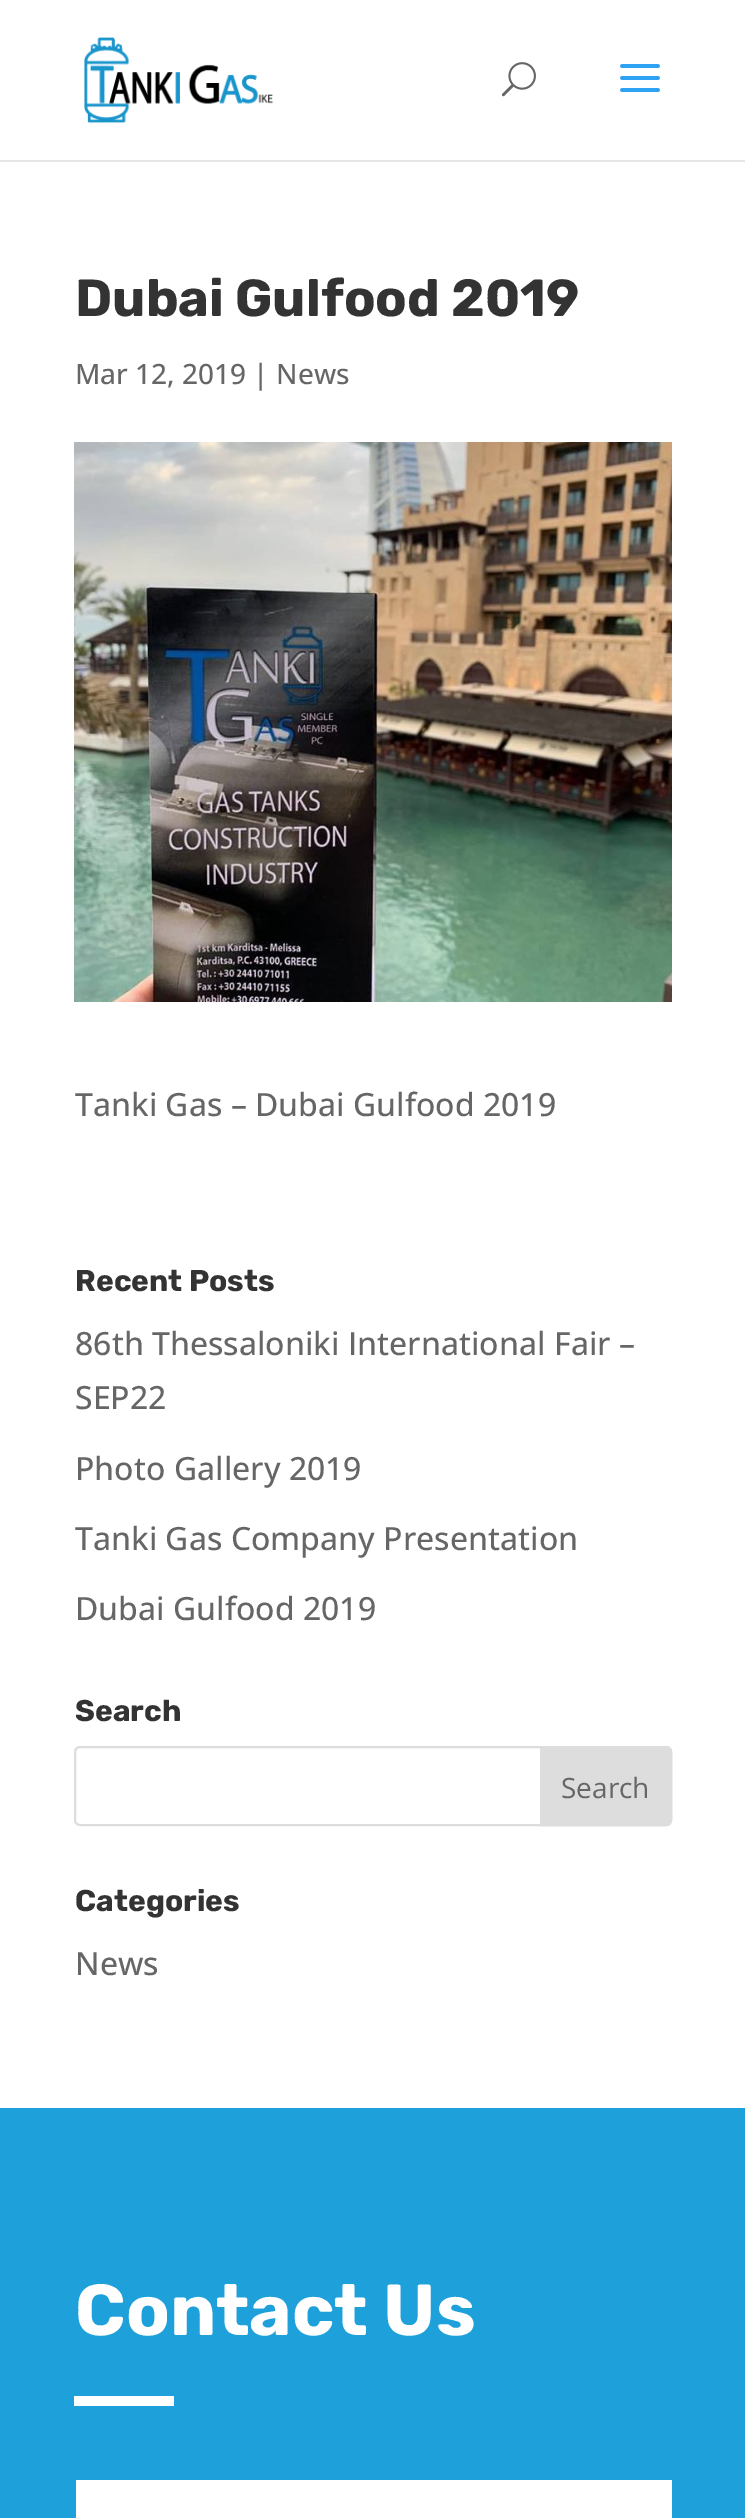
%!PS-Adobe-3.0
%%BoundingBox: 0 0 745 2518
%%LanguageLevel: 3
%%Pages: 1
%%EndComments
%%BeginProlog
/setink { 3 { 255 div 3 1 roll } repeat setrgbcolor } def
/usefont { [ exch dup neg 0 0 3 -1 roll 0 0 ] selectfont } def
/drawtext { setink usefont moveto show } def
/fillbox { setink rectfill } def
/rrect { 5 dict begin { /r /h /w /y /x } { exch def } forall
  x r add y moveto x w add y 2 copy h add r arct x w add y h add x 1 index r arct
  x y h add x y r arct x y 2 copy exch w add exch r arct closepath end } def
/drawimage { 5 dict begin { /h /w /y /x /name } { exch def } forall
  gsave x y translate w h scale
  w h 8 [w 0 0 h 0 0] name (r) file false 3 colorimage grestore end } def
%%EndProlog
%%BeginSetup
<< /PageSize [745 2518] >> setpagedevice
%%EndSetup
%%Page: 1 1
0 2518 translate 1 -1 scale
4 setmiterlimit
0 0 745 2518 255 255 255 fillbox
0 160 745 2 230 230 230 fillbox
(assets/img1.rgb) 84 37 190 87 drawimage
(assets/img2.rgb) 501 62 35 35 drawimage
(assets/img3.rgb) 620 64 40 28 drawimage
(Dubai Gulfood 2019) 75 316 /Rubik-Bold 52 51 51 51 drawtext
(Mar 12, 2019 | News) 75 384 /OpenSans-Medium 28 102 102 102 drawtext
(assets/img4.rgb) 74 442 598 560 drawimage
(Tanki Gas – Dubai Gulfood 2019) 75 1116 /OpenSans-Medium 32 102 102 102 drawtext
(Recent Posts) 75 1291 /Rubik-Bold 30 51 51 51 drawtext
(86th Thessaloniki International Fair –) 75 1355 /OpenSans-Medium 32 102 102 102 drawtext
(SEP22) 75 1409 /OpenSans-Medium 32 102 102 102 drawtext
(Photo Gallery 2019) 75 1480 /OpenSans-Medium 32 102 102 102 drawtext
(Tanki Gas Company Presentation) 75 1550 /OpenSans-Medium 32 102 102 102 drawtext
(Dubai Gulfood 2019) 75 1620 /OpenSans-Medium 32 102 102 102 drawtext
(Search) 75 1721 /Rubik-Bold 30 51 51 51 drawtext
221 221 221 setink
2 setlinewidth
75 1747 596 78 5 rrect stroke
541 1747 moveto 666 1747 lineto 669 1747 671 1749 671 1752 curveto 671 1820 lineto 671 1823 669 1825 666 1825 curveto 541 1825 lineto closepath gsave fill grestore
stroke
(Search) 561 1798 /OpenSans-Regular 28 102 102 102 drawtext
(Categories) 75 1911 /Rubik-Bold 30 51 51 51 drawtext
(News) 75 1975 /OpenSans-Medium 32 102 102 102 drawtext
0 2108 745 410 30 160 218 fillbox
(Contact Us) 75 2335 /Rubik-Bold 72 255 255 255 drawtext
74 2396 100 10 255 255 255 fillbox
76 2480 596 38 255 255 255 fillbox
showpage
%%EOF
